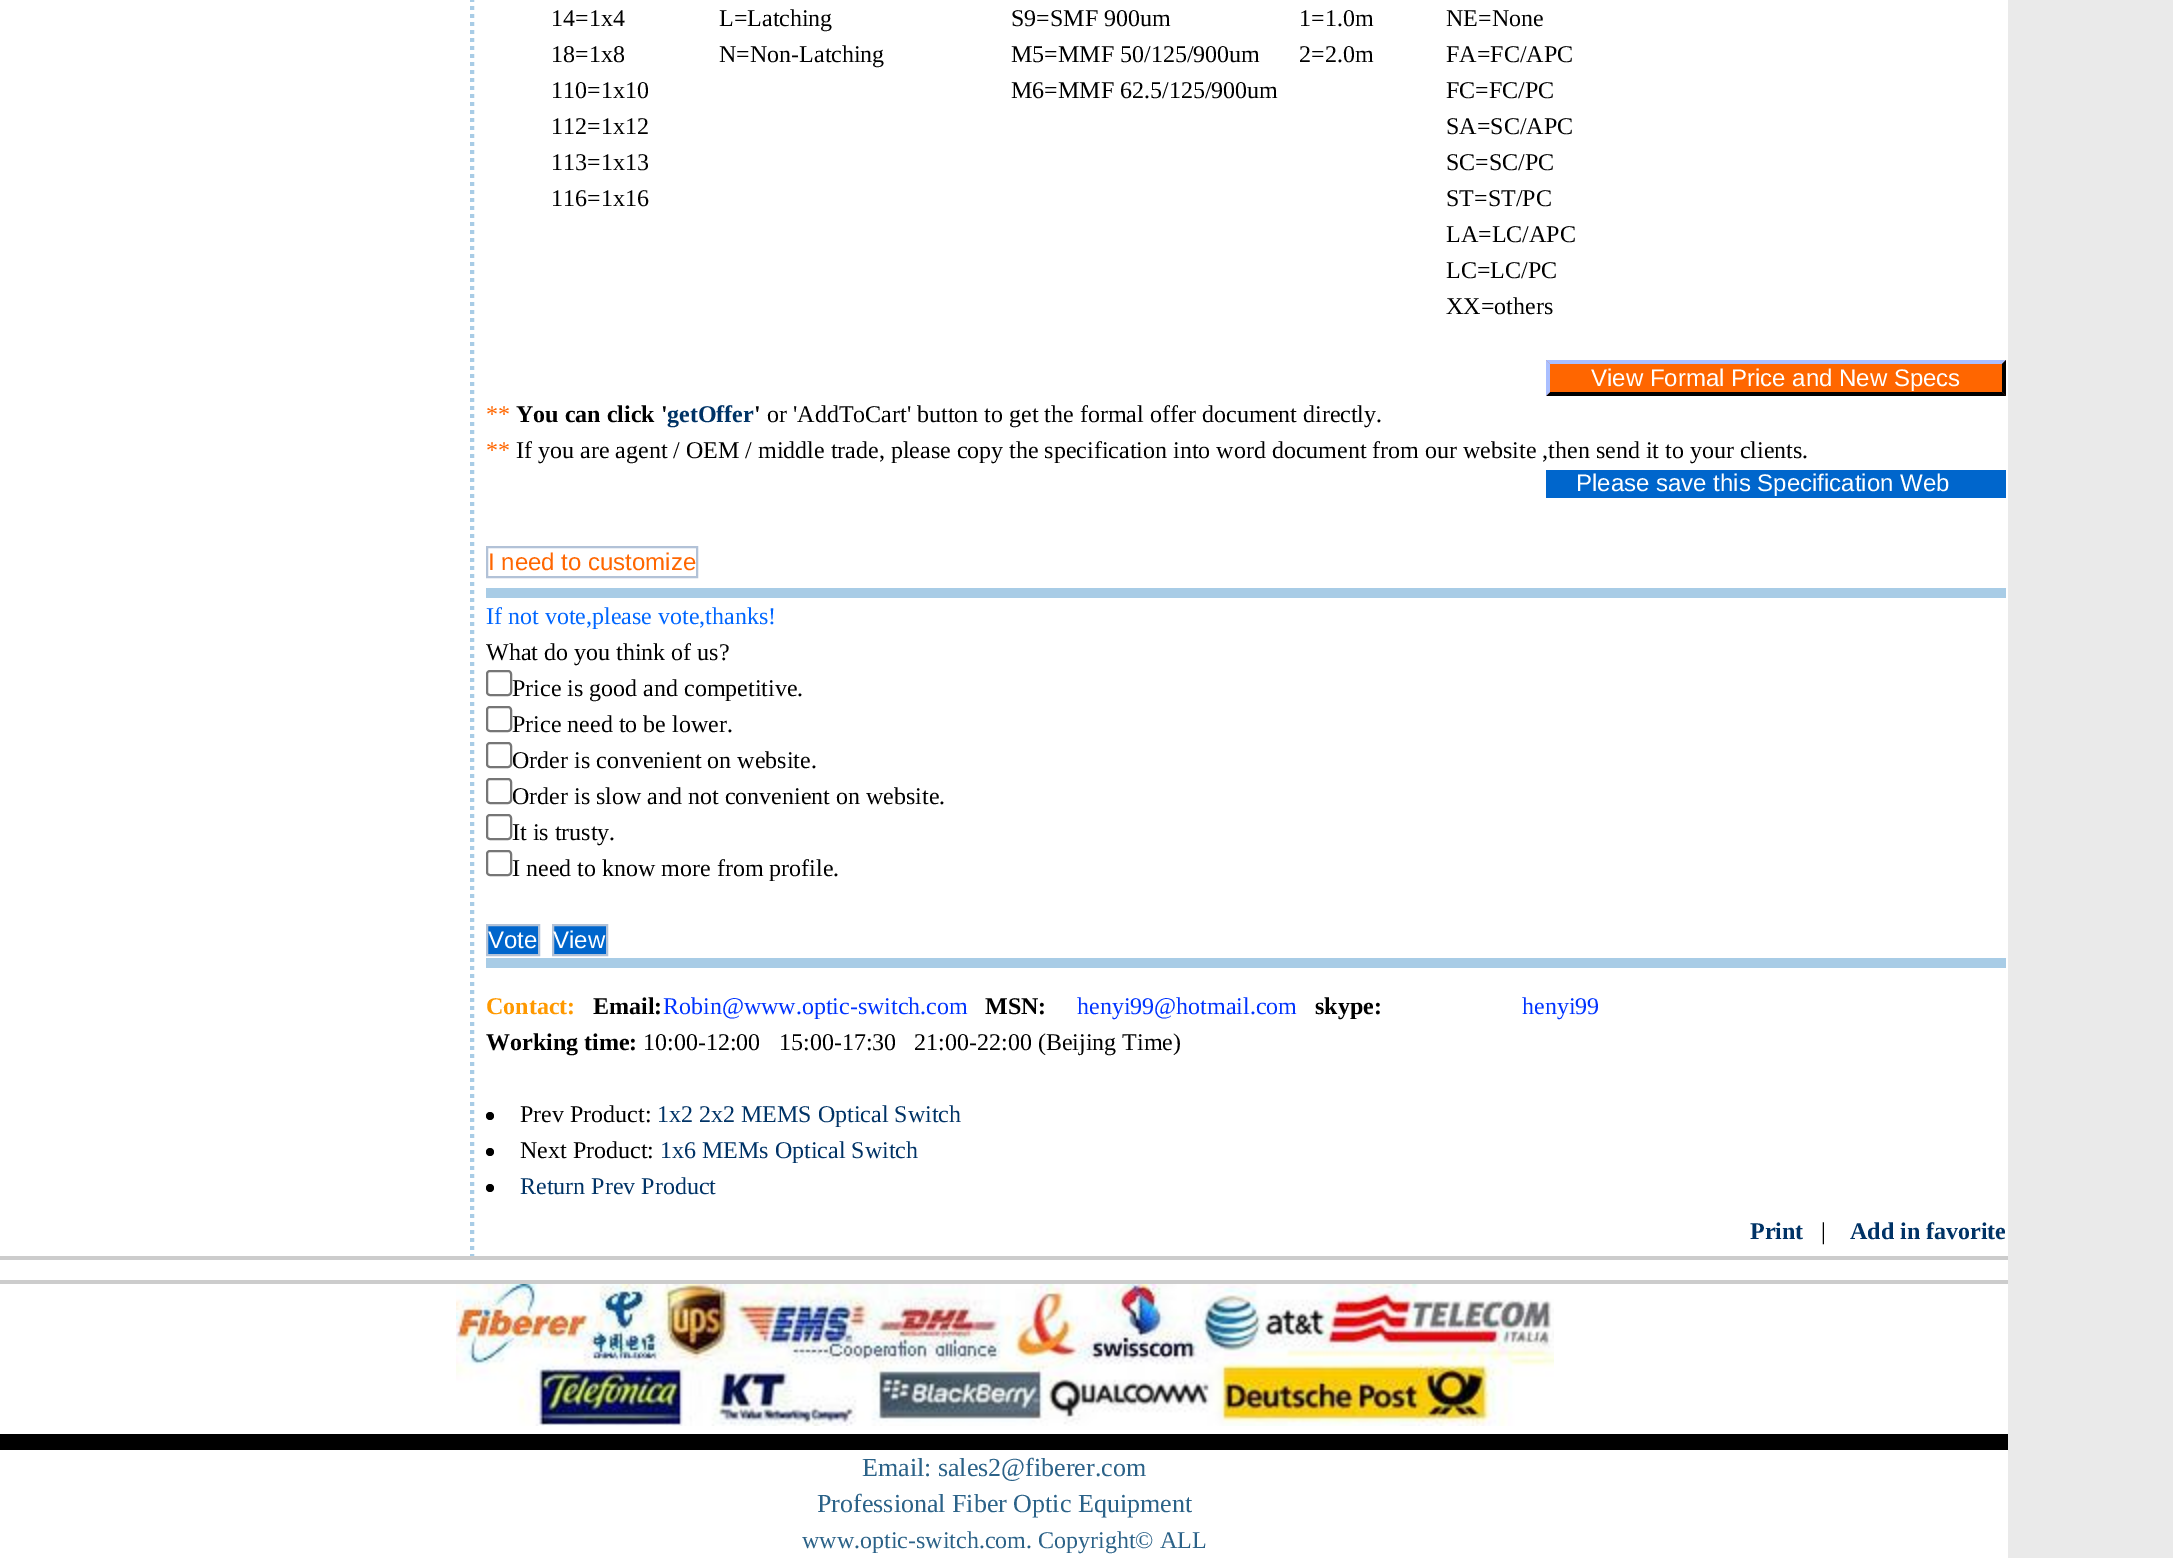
%!PS-Adobe-3.0
%%BoundingBox: 0 0 2173 1558
%%LanguageLevel: 3
%%Pages: 1
%%EndComments
%%BeginProlog
/setink { 3 { 255 div 3 1 roll } repeat setrgbcolor } def
/usefont { [ exch dup neg 0 0 3 -1 roll 0 0 ] selectfont } def
/drawtext { setink usefont moveto show } def
/fillbox { setink rectfill } def
/disc { newpath 0 360 arc closepath } def
/rrect { 5 dict begin { /r /h /w /y /x } { exch def } forall
  x r add y moveto x w add y 2 copy h add r arct x w add y h add x 1 index r arct
  x y h add x y r arct x y 2 copy exch w add exch r arct closepath end } def
/drawimage { 5 dict begin { /h /w /y /x /name } { exch def } forall
  gsave x y translate w h scale
  w h 8 [w 0 0 h 0 0] name (r) file false 3 colorimage grestore end } def
%%EndProlog
%%BeginSetup
<< /PageSize [2173 1558] >> setpagedevice
%%EndSetup
%%Page: 1 1
0 1558 translate 1 -1 scale
4 setmiterlimit
0 0 2173 1558 234 234 234 fillbox
0 0 2008 1256 255 255 255 fillbox
168 204 230 setink
4 setlinewidth
[4 4] 0 setdash
472 -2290 moveto 472 1256 lineto stroke
(14=1x4) 551 26 /LiberationSerif-Regular 24 0 0 0 drawtext
(18=1x8) 551 62 /LiberationSerif-Regular 24 0 0 0 drawtext
(110=1x10) 551 98 /LiberationSerif-Regular 24 0 0 0 drawtext
(112=1x12) 551 134 /LiberationSerif-Regular 24 0 0 0 drawtext
(113=1x13) 551 170 /LiberationSerif-Regular 24 0 0 0 drawtext
(116=1x16) 551 206 /LiberationSerif-Regular 24 0 0 0 drawtext
(L=Latching) 719 26 /LiberationSerif-Regular 24 0 0 0 drawtext
(N=Non-Latching) 719 62 /LiberationSerif-Regular 24 0 0 0 drawtext
(S9=SMF 900um) 1011 26 /LiberationSerif-Regular 24 0 0 0 drawtext
(M5=MMF 50/125/900um) 1011 62 /LiberationSerif-Regular 24 0 0 0 drawtext
(M6=MMF 62.5/125/900um) 1011 98 /LiberationSerif-Regular 24 0 0 0 drawtext
(1=1.0m) 1299 26 /LiberationSerif-Regular 24 0 0 0 drawtext
(2=2.0m) 1299 62 /LiberationSerif-Regular 24 0 0 0 drawtext
(NE=None) 1446 26 /LiberationSerif-Regular 24 0 0 0 drawtext
(FA=FC/APC) 1446 62 /LiberationSerif-Regular 24 0 0 0 drawtext
(FC=FC/PC) 1446 98 /LiberationSerif-Regular 24 0 0 0 drawtext
(SA=SC/APC) 1446 134 /LiberationSerif-Regular 24 0 0 0 drawtext
(SC=SC/PC) 1446 170 /LiberationSerif-Regular 24 0 0 0 drawtext
(ST=ST/PC) 1446 206 /LiberationSerif-Regular 24 0 0 0 drawtext
(LA=LC/APC) 1446 242 /LiberationSerif-Regular 24 0 0 0 drawtext
(LC=LC/PC) 1446 278 /LiberationSerif-Regular 24 0 0 0 drawtext
(XX=others) 1446 314 /LiberationSerif-Regular 24 0 0 0 drawtext
1546 360 460 36 255 102 0 fillbox
170 191 255 setink
1546 360 moveto 2006 360 lineto 2002 364 lineto 1550 364 lineto closepath fill
0 0 0 setink
2006 360 moveto 2006 396 lineto 2002 392 lineto 2002 364 lineto closepath fill
2006 396 moveto 1546 396 lineto 1550 392 lineto 2002 392 lineto closepath fill
170 191 255 setink
1546 396 moveto 1546 360 lineto 1550 364 lineto 1550 392 lineto closepath fill
(View Formal Price and New Specs) 1591 386 /LiberationSans-Regular 24 255 255 255 drawtext
(**) 486 422 /LiberationSerif-Regular 24 255 102 0 drawtext
(You can click ') 516 422 /LiberationSerif-Bold 24 0 0 0 drawtext
(getOffer) 667 422 /LiberationSerif-Bold 24 0 51 102 drawtext
(') 754 422 /LiberationSerif-Bold 24 0 0 0 drawtext
(or 'AddToCart' button to get the formal offer document directly.) 767 422 /LiberationSerif-Regular 24 0 0 0 drawtext
(**) 486 458 /LiberationSerif-Regular 24 255 102 0 drawtext
(If you are agent / OEM / middle trade, please copy the specification into word document from our website ,then send it to your clients.) 516 458 /LiberationSerif-Regular 24 0 0 0 drawtext
1546 470 460 28 0 102 204 fillbox
(Please save this Specification Web) 1576 491 /LiberationSans-Regular 24 255 255 255 drawtext
178 194 215 setink
2 setlinewidth
[] 0 setdash
487 547 210 30 rectstroke
(I need to customize) 488 570 /LiberationSans-Regular 24 255 102 0 drawtext
486 588 1520 10 168 204 230 fillbox
(If not vote,please vote,thanks!) 486 624 /LiberationSerif-Regular 24 0 102 255 drawtext
(What do you think of us?) 486 660 /LiberationSerif-Regular 24 0 0 0 drawtext
118 118 118 setink
487 671 24 24 3 rrect stroke
(Price is good and competitive.) 512 696 /LiberationSerif-Regular 24 0 0 0 drawtext
118 118 118 setink
487 707 24 24 3 rrect stroke
(Price need to be lower.) 512 732 /LiberationSerif-Regular 24 0 0 0 drawtext
118 118 118 setink
487 743 24 24 3 rrect stroke
(Order is convenient on website.) 512 768 /LiberationSerif-Regular 24 0 0 0 drawtext
118 118 118 setink
487 779 24 24 3 rrect stroke
(Order is slow and not convenient on website.) 512 804 /LiberationSerif-Regular 24 0 0 0 drawtext
118 118 118 setink
487 815 24 24 3 rrect stroke
(It is trusty.) 512 840 /LiberationSerif-Regular 24 0 0 0 drawtext
118 118 118 setink
487 851 24 24 3 rrect stroke
(I need to know more from profile.) 512 876 /LiberationSerif-Regular 24 0 0 0 drawtext
0 102 204 setink
487 925 moveto 539 925 lineto 539 955 lineto 487 955 lineto closepath gsave fill grestore
178 194 215 setink
stroke
(Vote) 488 948 /LiberationSans-Regular 24 255 255 255 drawtext
0 102 204 setink
553 925 moveto 607 925 lineto 607 955 lineto 553 955 lineto closepath gsave fill grestore
178 194 215 setink
stroke
(View) 553 948 /LiberationSans-Regular 24 255 255 255 drawtext
486 958 1520 10 168 204 230 fillbox
(Contact:) 486 1014 /LiberationSerif-Bold 24 255 153 0 drawtext
(Email:) 593 1014 /LiberationSerif-Bold 24 0 0 0 drawtext
(Robin@www.optic-switch.com) 663 1014 /LiberationSerif-Regular 24 0 51 255 drawtext
(MSN:) 985 1014 /LiberationSerif-Bold 24 0 0 0 drawtext
(henyi99@hotmail.com) 1077 1014 /LiberationSerif-Regular 24 0 51 255 drawtext
(skype:) 1315 1014 /LiberationSerif-Bold 24 0 0 0 drawtext
(henyi99) 1522 1014 /LiberationSerif-Regular 24 0 51 255 drawtext
(Working time:) 486 1050 /LiberationSerif-Bold 24 0 0 0 drawtext
(10:00-12:00) 643 1050 /LiberationSerif-Regular 24 0 0 0 drawtext
(15:00-17:30   21:00-22:00 \(Beijing Time\)) 779 1050 /LiberationSerif-Regular 24 0 0 0 drawtext
490 1116 4 disc fill
(Prev Product:) 520 1122 /LiberationSerif-Regular 24 0 0 0 drawtext
(1x2 2x2 MEMS Optical Switch) 657 1122 /LiberationSerif-Regular 24 0 51 102 drawtext
0 0 0 setink
490 1152 4 disc fill
(Next Product:) 520 1158 /LiberationSerif-Regular 24 0 0 0 drawtext
(1x6 MEMs Optical Switch) 660 1158 /LiberationSerif-Regular 24 0 51 102 drawtext
0 0 0 setink
490 1188 4 disc fill
(Return Prev Product) 520 1194 /LiberationSerif-Regular 24 0 51 102 drawtext
(Print) 1750 1239 /LiberationSerif-Bold 24 0 51 102 drawtext
(|) 1821 1239 /LiberationSerif-Regular 24 0 0 0 drawtext
(Add in favorite) 1850 1239 /LiberationSerif-Bold 24 0 51 102 drawtext
0 1260 2008 298 255 255 255 fillbox
0 1256 2008 4 204 204 204 fillbox
0 1280 2008 4 204 204 204 fillbox
(assets/img1.rgb) 456 1284 1098 142 drawimage
0 1434 2008 16 0 0 0 fillbox
(Email: sales2@fiberer.com) 862 1476 /LiberationSerif-Regular 26 43 98 136 drawtext
(Professional Fiber Optic Equipment) 817 1512 /LiberationSerif-Regular 26 43 98 136 drawtext
(www.optic-switch.com. Copyright© ALL) 802 1548 /LiberationSerif-Regular 24 43 98 136 drawtext
showpage
%%EOF
